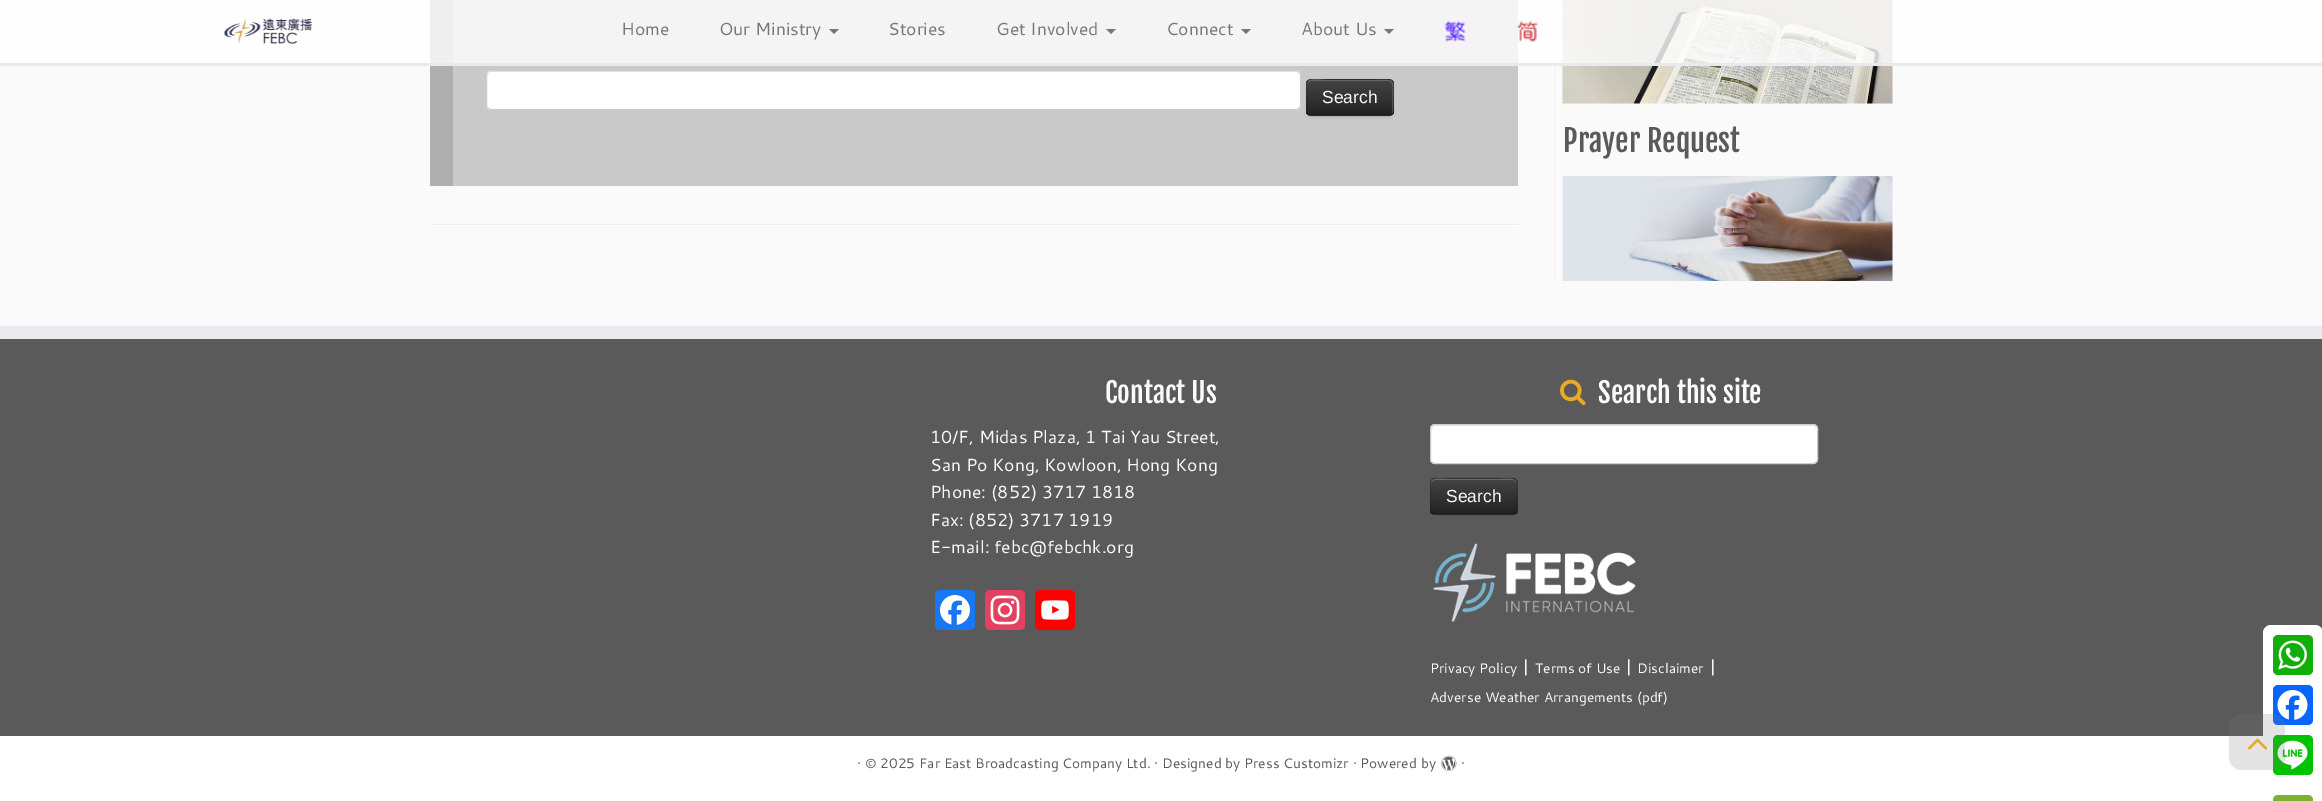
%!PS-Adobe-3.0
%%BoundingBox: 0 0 2322 801
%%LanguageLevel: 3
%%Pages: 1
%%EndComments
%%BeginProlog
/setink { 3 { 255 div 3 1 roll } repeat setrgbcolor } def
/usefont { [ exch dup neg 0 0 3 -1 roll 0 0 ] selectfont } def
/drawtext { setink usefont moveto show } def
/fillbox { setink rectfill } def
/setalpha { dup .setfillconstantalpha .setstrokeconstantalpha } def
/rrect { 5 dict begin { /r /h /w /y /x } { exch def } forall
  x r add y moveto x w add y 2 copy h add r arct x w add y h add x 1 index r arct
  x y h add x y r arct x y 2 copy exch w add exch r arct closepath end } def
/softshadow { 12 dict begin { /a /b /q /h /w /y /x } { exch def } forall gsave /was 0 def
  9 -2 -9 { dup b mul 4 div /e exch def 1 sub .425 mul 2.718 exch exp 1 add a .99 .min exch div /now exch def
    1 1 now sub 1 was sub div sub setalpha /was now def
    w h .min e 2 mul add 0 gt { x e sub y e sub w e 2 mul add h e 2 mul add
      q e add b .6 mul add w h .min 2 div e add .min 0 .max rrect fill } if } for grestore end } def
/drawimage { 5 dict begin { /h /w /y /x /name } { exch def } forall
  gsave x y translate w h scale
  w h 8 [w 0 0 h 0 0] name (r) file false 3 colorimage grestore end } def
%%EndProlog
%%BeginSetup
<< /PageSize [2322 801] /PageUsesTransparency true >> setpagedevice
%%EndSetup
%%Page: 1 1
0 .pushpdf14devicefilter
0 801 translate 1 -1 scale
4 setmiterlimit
0 0 2322 801 250 250 250 fillbox
453 0 1065 186 201 201 201 fillbox
430 0 23 186 175 175 175 fillbox
1555 0 1 281 238 238 238 fillbox
1556 0 1 281 255 255 255 fillbox
(assets/img4.rgb) 1562 0 331 104 drawimage
0.8 setalpha
0 0 2322 63 255 255 255 fillbox
1 setalpha
0 63 2322 3 233 234 238 fillbox
(assets/img1.rgb) 223 18 90 26 drawimage
(Home) 621 35 /Cantarell-Regular 17.5 119 119 119 drawtext
(Our Ministry) 719 35 /Cantarell-Regular 17.5 119 119 119 drawtext
829 29 moveto 839 29 lineto 834 34 lineto closepath fill
(Stories) 888 35 /Cantarell-Regular 17.5 119 119 119 drawtext
(Get Involved) 996 35 /Cantarell-Regular 17.5 119 119 119 drawtext
1106 29 moveto 1116 29 lineto 1111 34 lineto closepath fill
(Connect) 1166 35 /Cantarell-Regular 17.5 119 119 119 drawtext
1241 29 moveto 1251 29 lineto 1246 34 lineto closepath fill
(About Us) 1301 35 /Cantarell-Regular 17.5 119 119 119 drawtext
1384 29 moveto 1394 29 lineto 1389 34 lineto closepath fill
(assets/img2.rgb) 1444 20 22 22 drawimage
(assets/img3.rgb) 1517 20 21 22 drawimage
255 255 255 setink
486 70 815 40 5 rrect fill
236 236 236 setink
491 72 moveto 1296 72 lineto 1298 72 1300 74 1300 76 curveto 1300 73 1299 71 1296 71 curveto 492 71 lineto 489 71 488 73 488 76 curveto 488 74 489 72 491 72 curveto closepath fill
204 204 204 setink
486.5 70.5 814 39 4.5 rrect stroke
0 0 0 setink
1306 80 88 38 5 1 0.05 softshadow
54 54 54 setink
1306 79 88 37 5 rrect fill
gsave
1306 79 88 37 5 rrect clip newpath
gsave 1306 80 moveto 1394 80 lineto 1394 115 lineto 1306 115 lineto closepath clip newpath
<< /ShadingType 2 /ColorSpace /DeviceRGB /Coords [1350 80 1350 115] /Extend [true true] /Function << /FunctionType 2 /Domain [0 1] /C0 [0.267 0.267 0.267] /C1 [0.133 0.133 0.133] /N 1 >> >> shfill grestore
grestore
0.2 setalpha
255 255 255 setink
1311 81 moveto 1389 81 lineto 1394 81 1392 92 1392 94 curveto 1392 114 lineto 1394 111 1393 101 1393 98 curveto 1393 78 1396 80 1376 80 curveto 1325 80 lineto 1324 80 1310 77 1308 82 curveto 1308 85 lineto 1308 83 1309 81 1311 81 curveto closepath fill
0.25 setalpha
0 0 0 setink
1.2 setlinewidth
1392 114.5 moveto 1389 115.5 lineto 1311 115.5 lineto 1308 114.5 lineto stroke
0.1 setalpha
1308 114.5 moveto 1306 112.5 1307 109 1307 106.5 curveto 1307 97.5 lineto 1307 77.5 1304 79.5 1324 79.5 curveto 1376 79.5 lineto 1396 79.5 1393 77.5 1393 97.5 curveto 1393 106.5 lineto 1393 109 1394 112.5 1392 114.5 curveto stroke
1 setalpha
(Search) 1322 103 /LiberationSans-Regular 17.5 250 250 250 drawtext
430 224 1088 1 238 238 238 fillbox
430 225 1088 1 255 255 255 fillbox
(Prayer Request) 1563 152 /FjallaOne-Regular 30 90 90 90 drawtext
(assets/img5.rgb) 1562 176 331 105 drawimage
0 339 2322 397 90 90 90 fillbox
0 326 2322 13 233 234 238 fillbox
(Contact Us) 1105 403 /FjallaOne-Regular 27.5 250 250 250 drawtext
(10/F, Midas Plaza, 1 Tai Yau Street,) 930 443 /Cantarell-Regular 17.5 250 250 250 drawtext
(San Po Kong, Kowloon, Hong Kong) 930 471 /Cantarell-Regular 17.5 250 250 250 drawtext
(Phone: \(852\) 3717 1818) 930 498 /Cantarell-Regular 17.5 250 250 250 drawtext
(Fax: \(852\) 3717 1919) 930 526 /Cantarell-Regular 17.5 250 250 250 drawtext
(E-mail: febc@febchk.org) 930 553 /Cantarell-Regular 17.5 250 250 250 drawtext
24 119 242 setink
935 590 40 40 5 rrect fill
(assets/img6.rgb) 940 595 30 30 drawimage
228 64 95 setink
985 590 40 40 5 rrect fill
(assets/img7.rgb) 990 595 30 30 drawimage
255 0 0 setink
1035 590 40 40 5 rrect fill
(assets/img8.rgb) 1041 600 28 20 drawimage
(assets/img9.rgb) 1560 379 26 27 drawimage
(Search this site) 1598 403 /FjallaOne-Regular 27.5 250 250 250 drawtext
255 255 255 setink
1430 424 388 40 5 rrect fill
236 236 236 setink
1435 426 moveto 1812 426 lineto 1815 426 1816 428 1816 430 curveto 1816 427 1815 425 1812 425 curveto 1435 425 lineto 1432 425 1431 427 1431 430 curveto 1431 428 1433 426 1435 426 curveto closepath fill
204 204 204 setink
1 setlinewidth
1430.5 424.5 387 39 4.5 rrect stroke
54 54 54 setink
1430 478 88 37 5 rrect fill
gsave
1430 478 88 37 5 rrect clip newpath
gsave 1430 479 moveto 1518 479 lineto 1518 514 lineto 1430 514 lineto closepath clip newpath
<< /ShadingType 2 /ColorSpace /DeviceRGB /Coords [1474 479 1474 514] /Extend [true true] /Function << /FunctionType 2 /Domain [0 1] /C0 [0.267 0.267 0.267] /C1 [0.133 0.133 0.133] /N 1 >> >> shfill grestore
grestore
0.2 setalpha
255 255 255 setink
1435 480 moveto 1512 480 lineto 1515 480 1516 482 1516 484 curveto 1516 476 1504 479 1499 479 curveto 1448 479 lineto 1443 479 1431 476 1431 484 curveto 1431 482 1433 480 1435 480 curveto closepath fill
0.25 setalpha
0 0 0 setink
1.2 setlinewidth
1515.5 513 moveto 1513 514.5 lineto 1434.5 514.5 lineto 1432 513 lineto stroke
0.1 setalpha
1432 513 moveto 1430 511 1430.5 508 1430.5 505.5 curveto 1430.5 496 lineto 1430.5 476 1427.5 478 1448 478 curveto 1499.5 478 lineto 1520 478 1517 476 1517 496 curveto 1517 505.5 lineto 1517 508 1517.5 511 1515.5 513 curveto stroke
1 setalpha
(Search) 1446 502 /LiberationSans-Regular 17.5 250 250 250 drawtext
(assets/img10.rgb) 1433 543 203 80 drawimage
(Privacy Policy) 1430 673 /Cantarell-Regular 13.75 250 250 250 drawtext
(|) 1522 673 /Cantarell-Regular 17.5 250 250 250 drawtext
(Terms of Use) 1535 673 /Cantarell-Regular 13.75 250 250 250 drawtext
(|) 1625 673 /Cantarell-Regular 17.5 250 250 250 drawtext
(Disclaimer) 1637 673 /Cantarell-Regular 13.75 250 250 250 drawtext
(|) 1709 673 /Cantarell-Regular 17.5 250 250 250 drawtext
(Adverse Weather Arrangements \(pdf\)) 1430 702 /Cantarell-Regular 13.75 250 250 250 drawtext
0 736 2263 65 255 255 255 fillbox
(· © 2025 Far East Broadcasting Company Ltd. · Designed by Press Customizr · Powered by) 857 768 /Cantarell-Regular 13.75 90 90 90 drawtext
(assets/img11.rgb) 1441 755 16 16 drawimage
(·) 1461 768 /Cantarell-Regular 13.75 90 90 90 drawtext
255 255 255 setink
2263 625 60 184 8 rrect fill
8 102 255 setink
2273 685 40 40 5 rrect fill
(assets/img14.rgb) 2277 690 31 30 drawimage
0 195 0 setink
2273 735 40 40 5 rrect fill
(assets/img15.rgb) 2277 740 31 30 drawimage
0.2 setalpha
119 119 119 setink
2229 714 56 56 13 rrect fill
1 setalpha
(assets/img12.rgb) 2247 738 21 12 drawimage
18 175 10 setink
2273 635 40 40 5 rrect fill
(assets/img13.rgb) 2278 640 29 30 drawimage
123 179 46 setink
2273 795 40 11 5 rrect fill
.poppdf14devicefilter showpage
%%EOF
